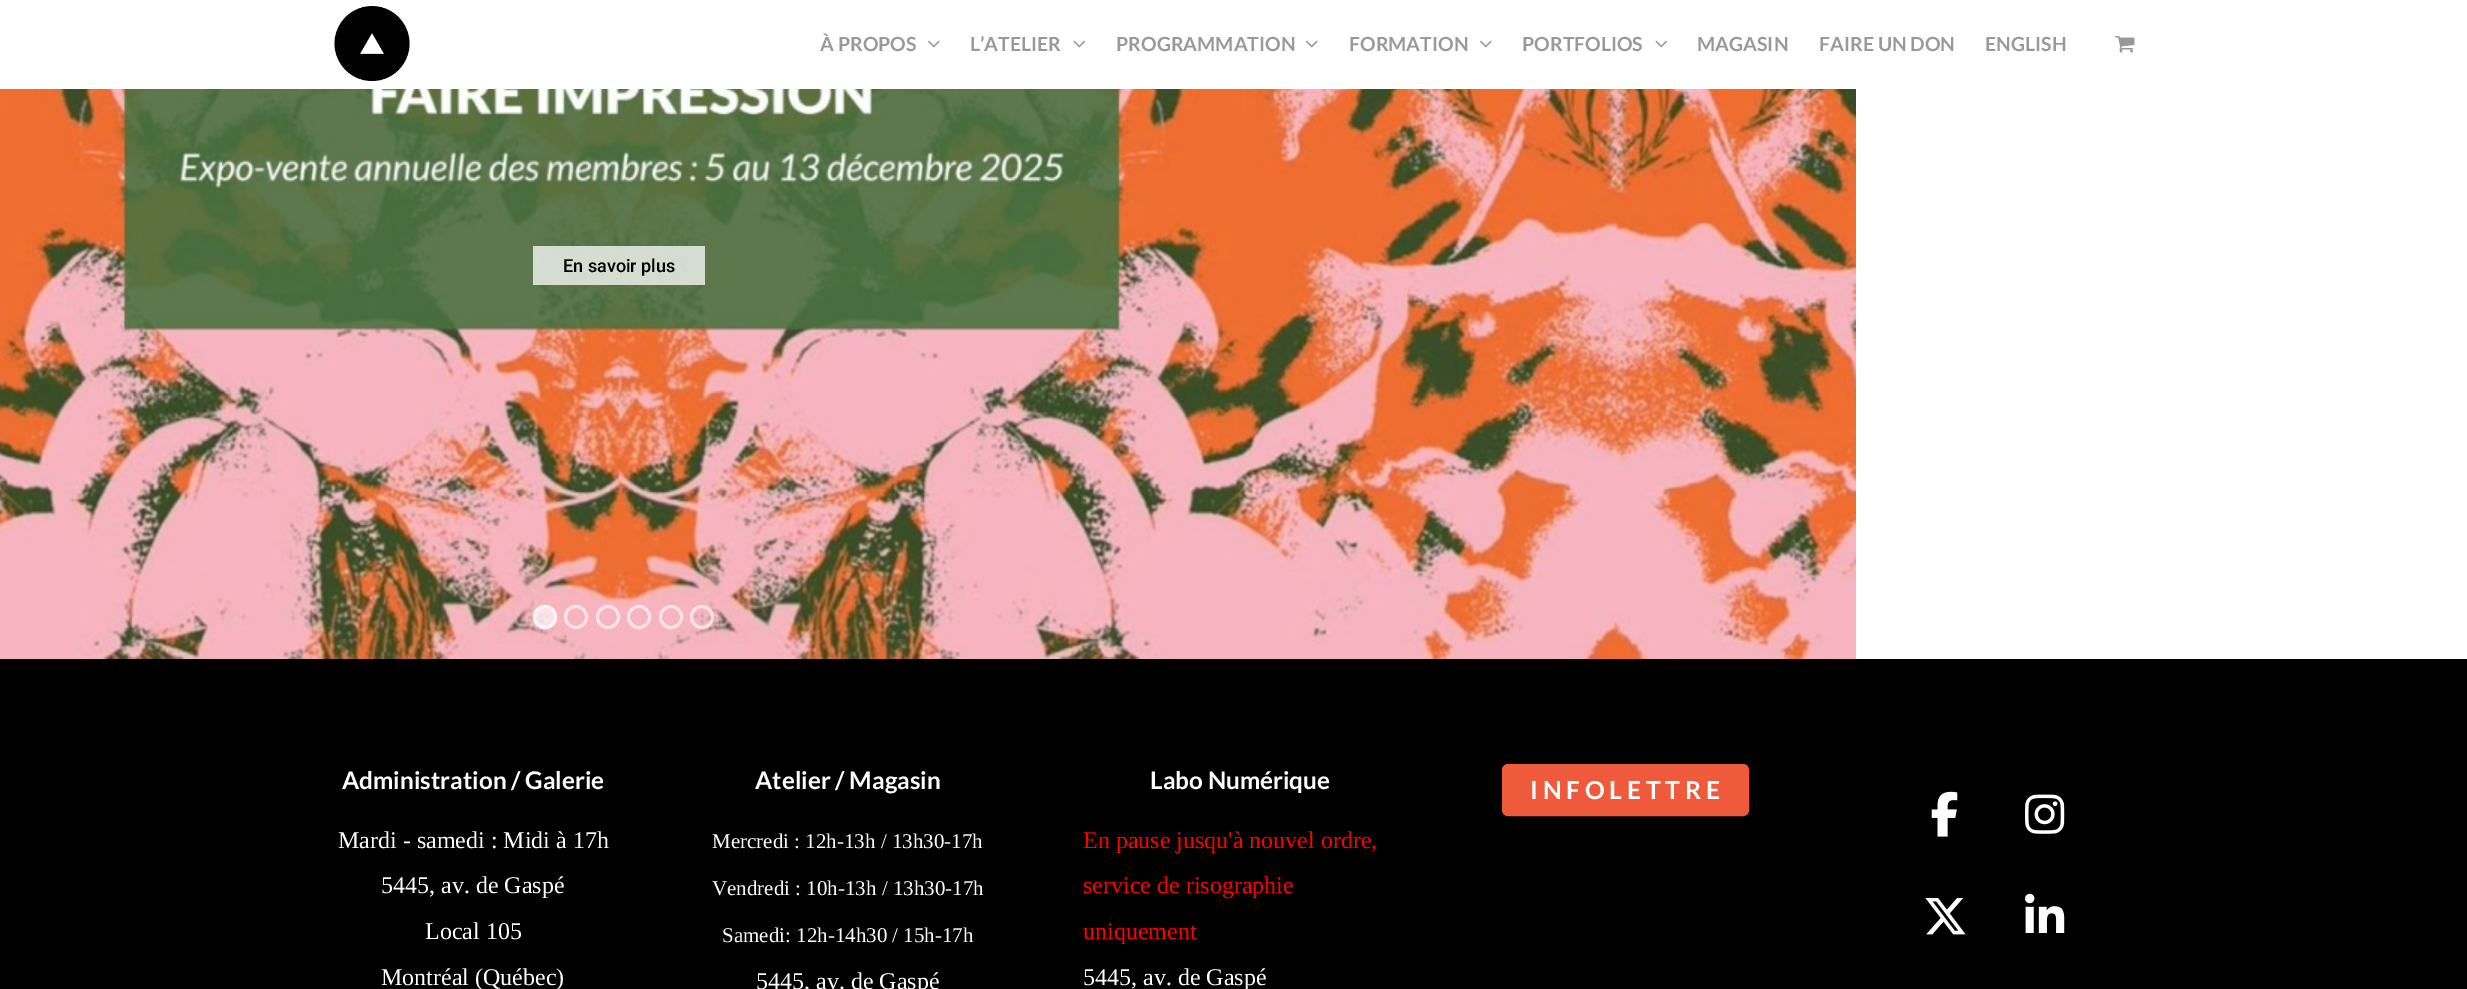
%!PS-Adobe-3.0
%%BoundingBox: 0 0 2467 989
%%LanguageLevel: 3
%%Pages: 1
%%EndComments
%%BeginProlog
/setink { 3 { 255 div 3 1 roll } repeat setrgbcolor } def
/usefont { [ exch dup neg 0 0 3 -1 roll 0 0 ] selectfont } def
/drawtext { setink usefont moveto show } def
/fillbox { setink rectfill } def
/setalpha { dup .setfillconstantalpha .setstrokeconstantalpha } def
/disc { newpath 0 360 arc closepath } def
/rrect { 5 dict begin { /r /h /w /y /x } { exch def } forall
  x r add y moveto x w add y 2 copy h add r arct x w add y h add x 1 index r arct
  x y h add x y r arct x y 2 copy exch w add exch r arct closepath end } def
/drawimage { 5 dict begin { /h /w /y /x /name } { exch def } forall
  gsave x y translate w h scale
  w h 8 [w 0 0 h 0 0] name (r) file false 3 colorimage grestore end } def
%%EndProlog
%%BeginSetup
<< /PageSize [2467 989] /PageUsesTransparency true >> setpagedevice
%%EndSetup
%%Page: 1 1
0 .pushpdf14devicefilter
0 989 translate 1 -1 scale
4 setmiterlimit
0 0 2467 989 255 255 255 fillbox
(assets/img1.rgb) 334 6 76 75 drawimage
(À PROPOS) 820 51 /Lato-Bold 19.5 153 153 153 drawtext
(assets/img2.rgb) 928 40 12 8 drawimage
(L’ATELIER) 970 51 /Lato-Bold 19.5 153 153 153 drawtext
(assets/img3.rgb) 1073 40 12 8 drawimage
(PROGRAMMATION) 1116 51 /Lato-Bold 19.5 153 153 153 drawtext
(assets/img2.rgb) 1306 40 12 8 drawimage
(FORMATION) 1349 51 /Lato-Bold 19.5 153 153 153 drawtext
(assets/img2.rgb) 1480 40 12 8 drawimage
(PORTFOLIOS) 1522 51 /Lato-Bold 19.5 153 153 153 drawtext
(assets/img3.rgb) 1655 40 12 8 drawimage
(MAGASIN) 1697 51 /Lato-Bold 19.5 153 153 153 drawtext
(FAIRE UN DON) 1819 51 /Lato-Bold 19.5 153 153 153 drawtext
(ENGLISH) 1985 51 /Lato-Bold 19.5 153 153 153 drawtext
(assets/img4.rgb) 2115 36 20 17 drawimage
(assets/img5.rgb) 0 89 1856 570 drawimage
0.75 setalpha
533 246 172 39 255 255 255 fillbox
1 setalpha
(En savoir plus) 563 272 /Roboto-Medium 18 0 0 0 drawtext
0.62 setalpha
255 255 255 setink
3 setlinewidth
545 617 10.5 disc stroke
545 617 12 disc fill
576 617 10.5 disc stroke
608 617 10.5 disc stroke
639 617 10.5 disc stroke
671 617 10.5 disc stroke
702 617 10.5 disc stroke
1 setalpha
0 659 2467 330 0 0 0 fillbox
(Administration / Galerie) 342 789 /Lato-Bold 24.25 255 255 255 drawtext
(Mardi - samedi : Midi à 17h) 338 848 /LiberationSerif-Regular 24 255 255 255 drawtext
(5445, av. de Gaspé) 381 893 /LiberationSerif-Regular 24 255 255 255 drawtext
(Local 105) 425 939 /LiberationSerif-Regular 24 255 255 255 drawtext
(Montréal \(Québec\)) 381 985 /LiberationSerif-Regular 24 255 255 255 drawtext
(Atelier / Magasin) 755 789 /Lato-Bold 24.25 255 255 255 drawtext
(Mercredi : 12h-13h / 13h30-17h) 712 848 /LiberationSerif-Regular 21 255 255 255 drawtext
(Vendredi : 10h-13h / 13h30-17h) 712 895 /LiberationSerif-Regular 21 255 255 255 drawtext
(Samedi: 12h-14h30 / 15h-17h) 722 942 /LiberationSerif-Regular 21 255 255 255 drawtext
(5445, av. de Gaspé) 756 989 /LiberationSerif-Regular 24 255 255 255 drawtext
(Labo Numérique) 1150 789 /Lato-Bold 24.25 255 255 255 drawtext
(En pause jusqu'à nouvel ordre,) 1083 848 /LiberationSerif-Regular 24 255 0 0 drawtext
(service de risographie) 1083 893 /LiberationSerif-Regular 24 255 0 0 drawtext
(uniquement) 1083 939 /LiberationSerif-Regular 24 255 0 0 drawtext
(5445, av. de Gaspé) 1083 985 /LiberationSerif-Regular 24 255 255 255 drawtext
240 90 60 setink
1503 765 245 50 5 rrect gsave fill grestore
2 setlinewidth
stroke
(I N F O L E T T R E) 1530 799 /Lato-Bold 24.75 255 255 255 drawtext
(assets/img6.rgb) 1931 791 27 46 drawimage
(assets/img7.rgb) 2025 794 40 40 drawimage
(assets/img8.rgb) 1925 898 41 37 drawimage
(assets/img9.rgb) 2025 893 40 40 drawimage
.poppdf14devicefilter showpage
%%EOF
